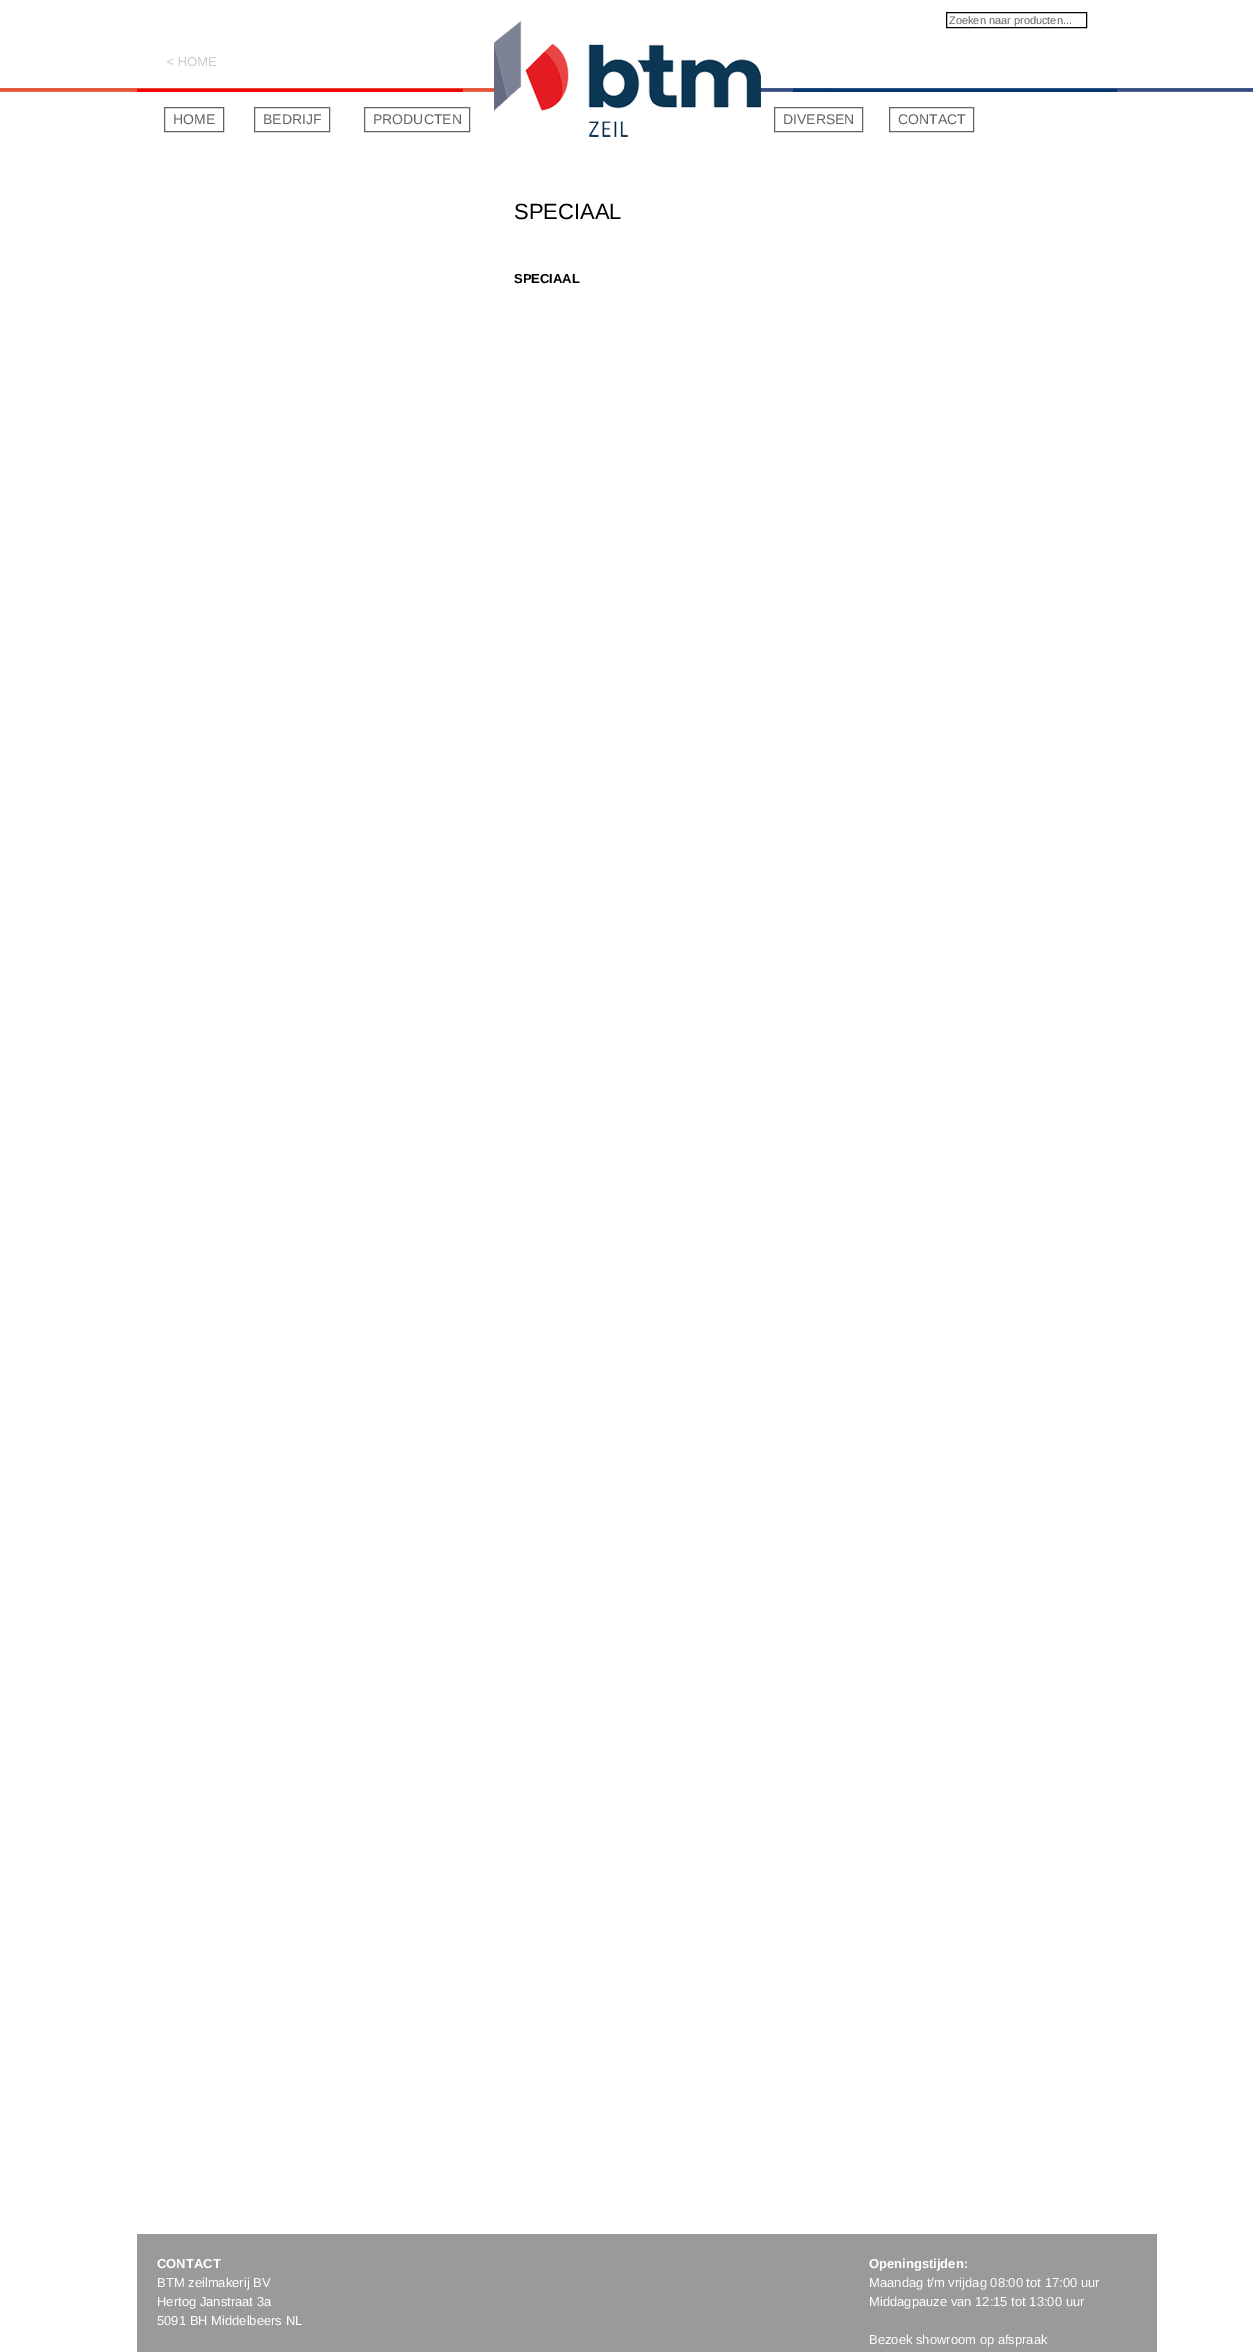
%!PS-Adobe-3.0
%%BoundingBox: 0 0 1253 2352
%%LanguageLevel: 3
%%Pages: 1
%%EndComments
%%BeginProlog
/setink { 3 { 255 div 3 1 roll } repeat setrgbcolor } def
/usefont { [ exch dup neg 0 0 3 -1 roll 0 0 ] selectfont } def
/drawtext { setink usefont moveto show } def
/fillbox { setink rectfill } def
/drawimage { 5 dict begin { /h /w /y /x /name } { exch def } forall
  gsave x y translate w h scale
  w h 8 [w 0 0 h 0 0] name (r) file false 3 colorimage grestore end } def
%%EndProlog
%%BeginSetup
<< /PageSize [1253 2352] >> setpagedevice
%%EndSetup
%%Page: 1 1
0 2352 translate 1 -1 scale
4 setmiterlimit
0 0 1253 2352 255 255 255 fillbox
(assets/img1.rgb) 0 88 1253 8 drawimage
(< HOME) 167 66 /LiberationSans-Regular 13 204 202 203 drawtext
(assets/img2.rgb) 137 21 980 116 drawimage
0 0 0 setink
946.5 12.5 140 15 rectstroke
(Zoeken naar producten...) 949 24 /LiberationSans-Regular 11 99 99 99 drawtext
164.5 107.5 59 24 rectstroke
(HOME) 173 124 /LiberationSans-Regular 14 99 99 99 drawtext
254.5 107.5 75 24 rectstroke
(BEDRIJF) 263 124 /LiberationSans-Regular 14 99 99 99 drawtext
364.5 107.5 105 24 rectstroke
(PRODUCTEN) 373 124 /LiberationSans-Regular 14 99 99 99 drawtext
774.5 107.5 88 24 rectstroke
(DIVERSEN) 783 124 /LiberationSans-Regular 14 99 99 99 drawtext
889.5 107.5 84 24 rectstroke
(CONTACT) 898 124 /LiberationSans-Regular 14 99 99 99 drawtext
(SPECIAAL) 514 219 /LiberationSans-Regular 22 0 0 0 drawtext
(SPECIAAL) 514 283 /LiberationSans-Bold 13 0 0 0 drawtext
137 2234 1020 118 154 154 154 fillbox
(CONTACT) 157 2268 /LiberationSans-Bold 13 255 255 255 drawtext
(BTM zeilmakerij BV) 157 2287 /LiberationSans-Regular 13 255 255 255 drawtext
(Hertog Janstraat 3a) 157 2306 /LiberationSans-Regular 13 255 255 255 drawtext
(5091 BH Middelbeers NL) 157 2325 /LiberationSans-Regular 13 255 255 255 drawtext
(Openingstijden:) 869 2268 /LiberationSans-Bold 13 255 255 255 drawtext
(Maandag t/m vrijdag 08:00 tot 17:00 uur) 869 2287 /LiberationSans-Regular 13 255 255 255 drawtext
(Middagpauze van 12:15 tot 13:00 uur) 869 2306 /LiberationSans-Regular 13 255 255 255 drawtext
(Bezoek showroom op afspraak) 869 2344 /LiberationSans-Regular 13 255 255 255 drawtext
showpage
%%EOF
